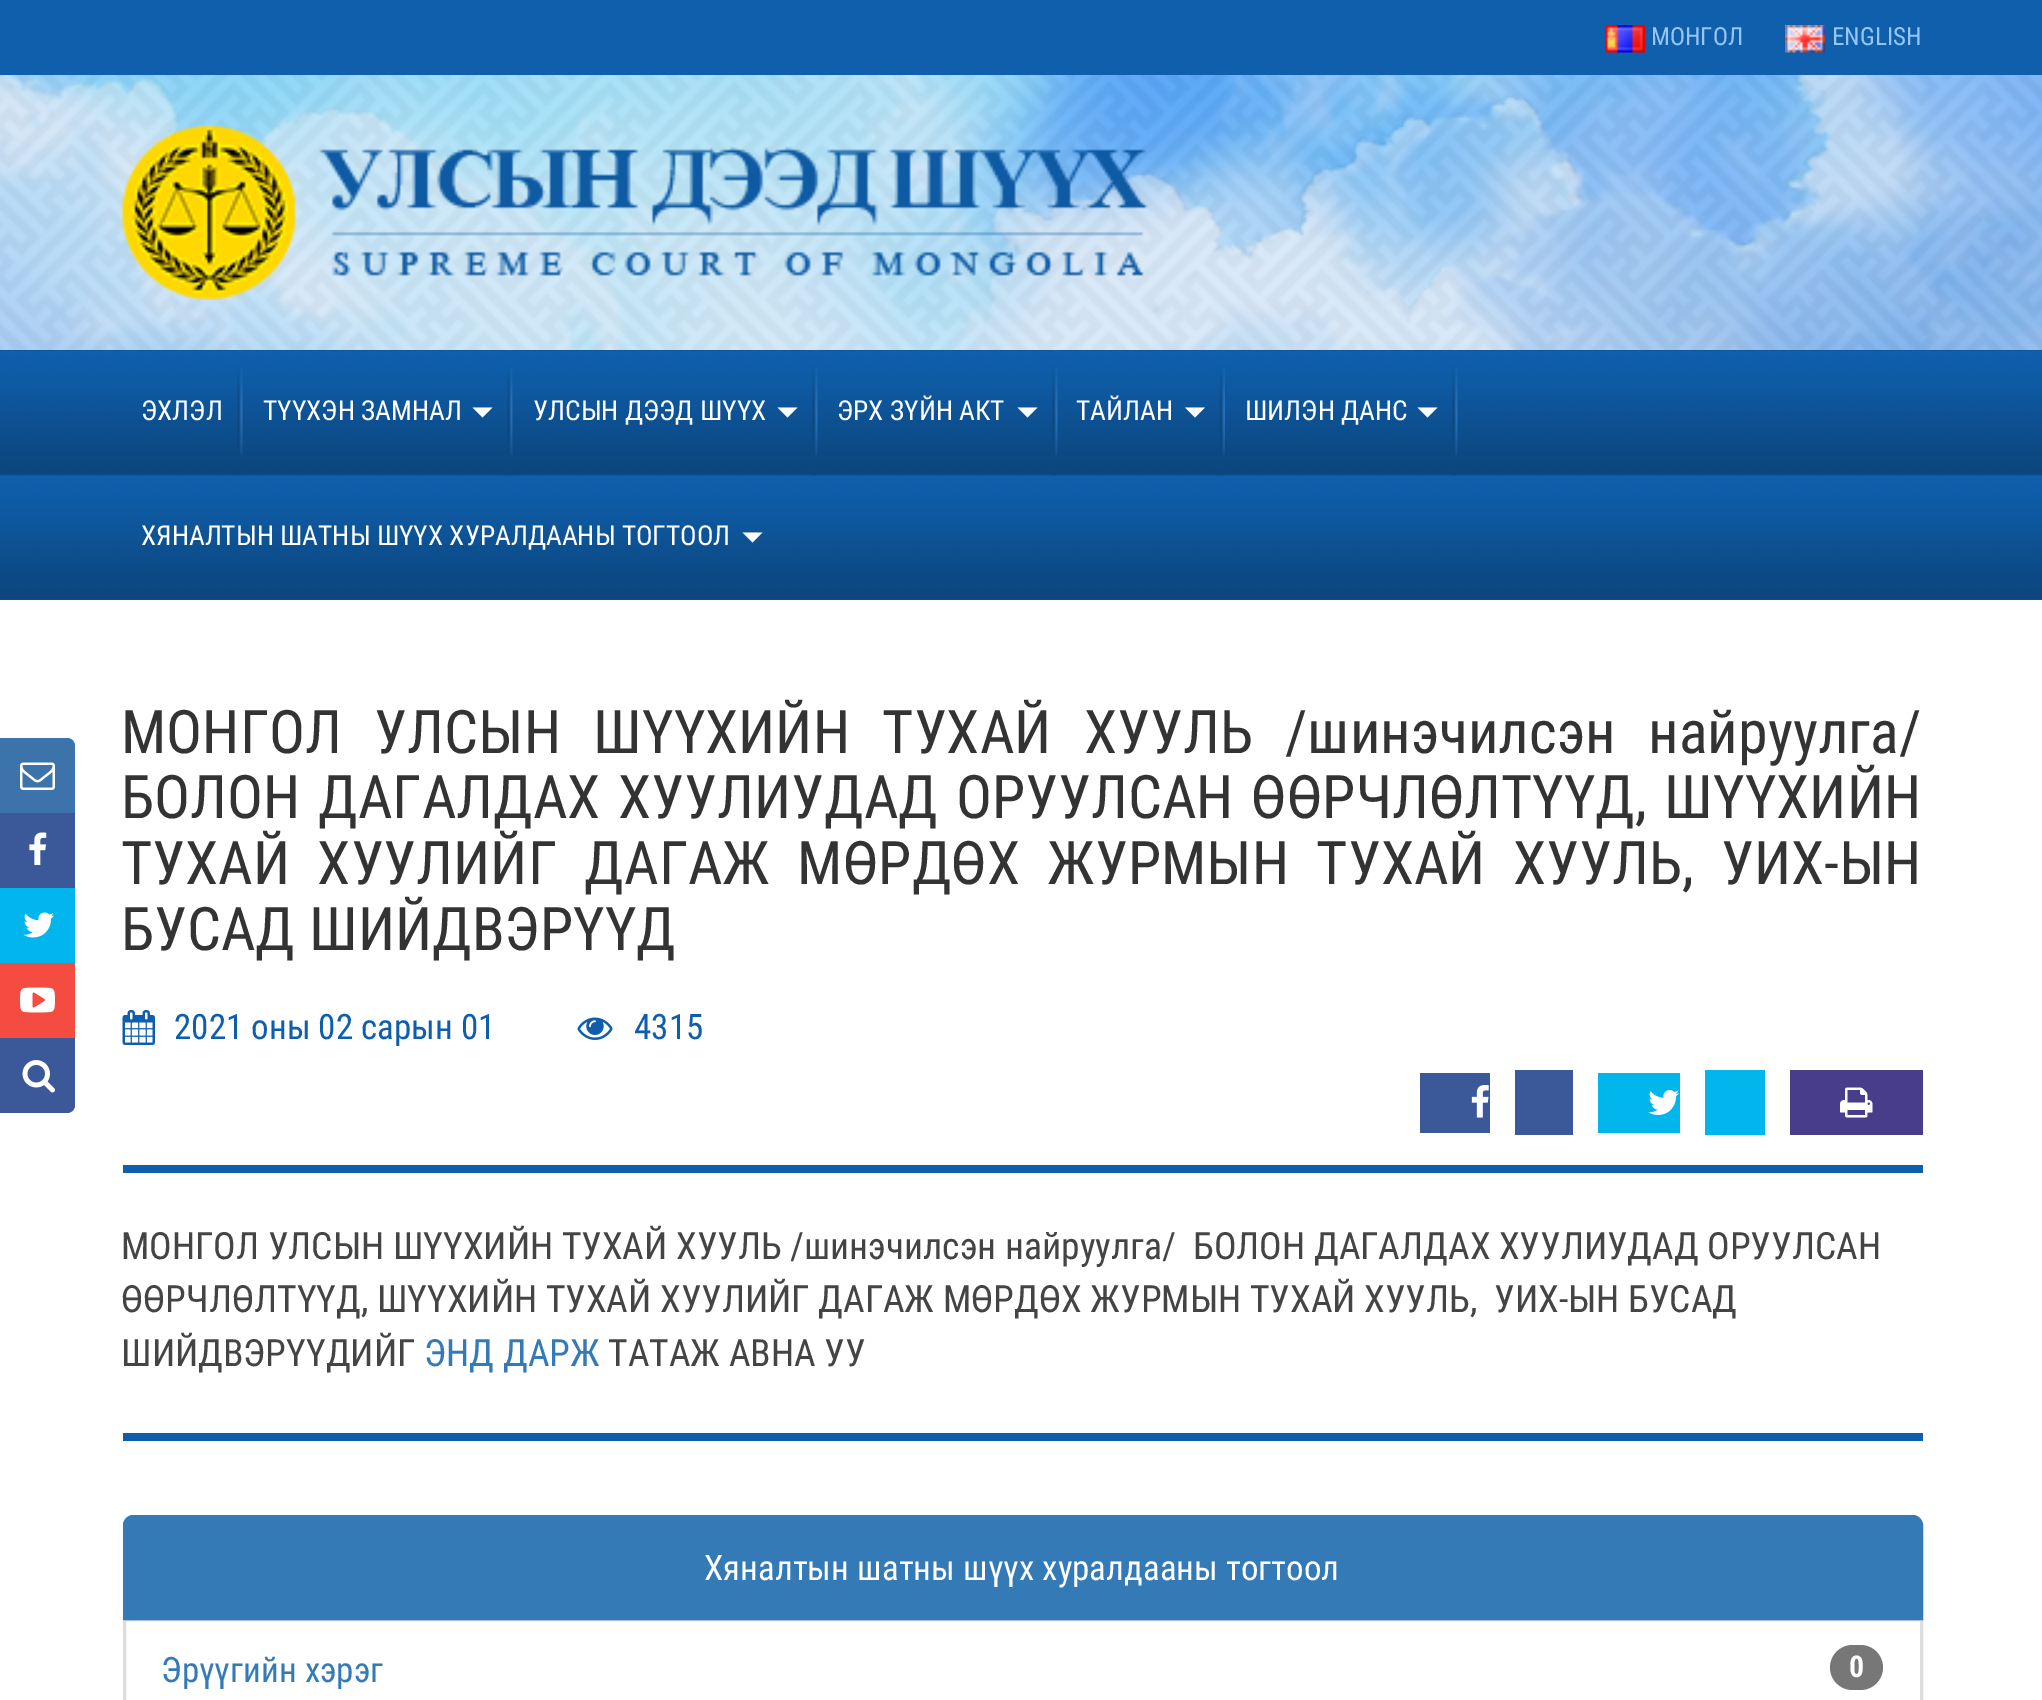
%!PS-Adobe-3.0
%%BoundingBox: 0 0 2042 1700
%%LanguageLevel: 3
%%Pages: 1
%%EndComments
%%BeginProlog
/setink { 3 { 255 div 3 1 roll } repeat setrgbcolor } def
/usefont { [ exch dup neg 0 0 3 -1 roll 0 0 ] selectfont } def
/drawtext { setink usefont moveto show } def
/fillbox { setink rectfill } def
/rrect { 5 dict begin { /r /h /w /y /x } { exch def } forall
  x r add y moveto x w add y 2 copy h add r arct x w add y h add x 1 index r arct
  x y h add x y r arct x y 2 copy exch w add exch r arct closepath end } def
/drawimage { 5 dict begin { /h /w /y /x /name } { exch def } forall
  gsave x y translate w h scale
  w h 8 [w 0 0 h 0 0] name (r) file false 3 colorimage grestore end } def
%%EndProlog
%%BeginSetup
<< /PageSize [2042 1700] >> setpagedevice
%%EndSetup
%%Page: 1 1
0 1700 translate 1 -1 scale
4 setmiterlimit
0 0 2042 1700 255 255 255 fillbox
0 0 2042 75 15 95 172 fillbox
(assets/img1.rgb) 1605 25 40 28 drawimage
(МОНГОЛ) 1651 45 /RobotoCondensed-Regular 25 149 199 246 drawtext
(assets/img2.rgb) 1785 25 40 28 drawimage
(ENGLISH) 1832 45 /RobotoCondensed-Regular 25 149 199 246 drawtext
(assets/img3.rgb) 0 75 2042 275 drawimage
(assets/img4.rgb) 122 125 1026 175 drawimage
(assets/img5.rgb) 0 350 2042 250 drawimage
(assets/img6.rgb) 237 350 6 125 drawimage
(ЭХЛЭЛ) 141 420 /RobotoCondensed-Regular 27.5 255 255 255 drawtext
(assets/img7.rgb) 507 350 6 125 drawimage
(ТҮҮХЭН ЗАМНАЛ) 263 420 /RobotoCondensed-Regular 27.5 255 255 255 drawtext
472.5 407.5 moveto 492.5 407.5 lineto 482.5 417.5 lineto closepath fill
(assets/img8.rgb) 812 350 6 125 drawimage
(УЛСЫН ДЭЭД ШҮҮХ) 533 420 /RobotoCondensed-Regular 27.5 255 255 255 drawtext
777.5 407.5 moveto 797.5 407.5 lineto 787.5 417.5 lineto closepath fill
(assets/img8.rgb) 1052 350 6 125 drawimage
(ЭРХ ЗҮЙН АКТ) 837 420 /RobotoCondensed-Regular 27.5 255 255 255 drawtext
1017.5 407.5 moveto 1037.5 407.5 lineto 1027.5 417.5 lineto closepath fill
(assets/img9.rgb) 1220 350 5 125 drawimage
(ТАЙЛАН) 1076 420 /RobotoCondensed-Regular 27.5 255 255 255 drawtext
1185 407.5 moveto 1205 407.5 lineto 1195 417.5 lineto closepath fill
(assets/img8.rgb) 1452 350 6 125 drawimage
(ШИЛЭН ДАНС) 1245 420 /RobotoCondensed-Regular 27.5 255 255 255 drawtext
1417.5 407.5 moveto 1437.5 407.5 lineto 1427.5 417.5 lineto closepath fill
(ХЯНАЛТЫН ШАТНЫ ШҮҮХ ХУРАЛДААНЫ ТОГТООЛ) 141 545 /RobotoCondensed-Regular 27.5 255 255 255 drawtext
742.5 532.5 moveto 762.5 532.5 lineto 752.5 542.5 lineto closepath fill
60 115 170 setink
0 738 moveto 67 738 lineto 71.5 738 75 741.5 75 746 curveto 75 813 lineto 0 813 lineto closepath fill
(assets/img10.rgb) 20 762 35 28 drawimage
0 813 75 75 59 89 152 fillbox
(assets/img11.rgb) 29 832 18 33 drawimage
0 888 75 75 0 182 237 fillbox
(assets/img12.rgb) 23 912 31 26 drawimage
0 963 75 75 245 76 65 fillbox
(assets/img13.rgb) 20 987 35 26 drawimage
59 89 152 setink
0 1038 moveto 75 1038 lineto 75 1105 lineto 75 1109.5 71.5 1113 67 1113 curveto 0 1113 lineto closepath fill
(assets/img14.rgb) 22 1060 33 33 drawimage
/RobotoCondensed-Regular 60 usefont
51 51 51 setink
121 753 moveto 18.75 0 32 (МОНГОЛ УЛСЫН ШҮҮХИЙН ТУХАЙ ХУУЛЬ /шинэчилсэн найруулга/) widthshow
121 818 moveto 4 0 32 (БОЛОН ДАГАЛДАХ ХУУЛИУДАД ОРУУЛСАН ӨӨРЧЛӨЛТҮҮД, ШҮҮХИЙН) widthshow
121 884 moveto 13.75 0 32 (ТУХАЙ ХУУЛИЙГ ДАГАЖ МӨРДӨХ ЖУРМЫН ТУХАЙ ХУУЛЬ,) widthshow
(УИХ-ЫН) 1721 884 /RobotoCondensed-Regular 60 51 51 51 drawtext
(БУСАД ШИЙДВЭРҮҮД) 121 950 /RobotoCondensed-Regular 60 51 51 51 drawtext
123 1165 1800 8 15 94 172 fillbox
(assets/img15.rgb) 122 1010 33 35 drawimage
(2021 оны 02 сарын 01) 174 1039 /RobotoCondensed-Regular 35 15 94 172 drawtext
(assets/img16.rgb) 577 1017 36 23 drawimage
(4315) 634 1039 /RobotoCondensed-Regular 35 15 94 172 drawtext
1420 1073 70 60 59 89 152 fillbox
1515 1070 58 65 59 89 152 fillbox
(assets/img17.rgb) 1471 1085 18 33 drawimage
1598 1073 82 60 0 182 237 fillbox
1705 1070 60 65 0 182 237 fillbox
(assets/img18.rgb) 1648 1090 31 25 drawimage
1790 1070 133 65 72 61 139 fillbox
(assets/img19.rgb) 1840 1087 33 31 drawimage
(МОНГОЛ УЛСЫН ШҮҮХИЙН ТУХАЙ ХУУЛЬ /шинэчилсэн найруулга/  БОЛОН ДАГАЛДАХ ХУУЛИУДАД ОРУУЛСАН) 121 1259 /RobotoCondensed-Regular 37.5 68 68 68 drawtext
(ӨӨРЧЛӨЛТҮҮД, ШҮҮХИЙН ТУХАЙ ХУУЛИЙГ ДАГАЖ МӨРДӨХ ЖУРМЫН ТУХАЙ ХУУЛЬ,  УИХ-ЫН БУСАД) 121 1312 /RobotoCondensed-Regular 37.5 68 68 68 drawtext
(ШИЙДВЭРҮҮДИЙГ) 121 1366 /RobotoCondensed-Regular 37.5 68 68 68 drawtext
(ЭНД ДАРЖ) 424 1366 /RobotoCondensed-Regular 37.5 51 122 183 drawtext
(ТАТАЖ АВНА УУ) 608 1366 /RobotoCondensed-Regular 37.5 68 68 68 drawtext
123 1433 1800 8 15 94 172 fillbox
221 221 221 setink
3 setlinewidth
124.5 1619.5 1797 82 rectstroke
51 122 183 setink
133 1516.5 moveto 1913 1516.5 lineto 1917.5 1516.5 1921.5 1520.5 1921.5 1525 curveto 1921.5 1618.5 lineto 124.5 1618.5 lineto 124.5 1525 lineto 124.5 1520.5 128.5 1516.5 133 1516.5 curveto closepath gsave fill grestore
stroke
(Хяналтын шатны шүүх хуралдааны тогтоол) 704 1580 /RobotoCondensed-Regular 35 255 255 255 drawtext
(Эрүүгийн хэрэг) 161 1682 /RobotoCondensed-Regular 35 51 122 183 drawtext
119 119 119 setink
1830 1645 53 45 22.5 rrect fill
(0) 1849 1677 /RobotoCondensed-Bold 30 255 255 255 drawtext
showpage
%%EOF
